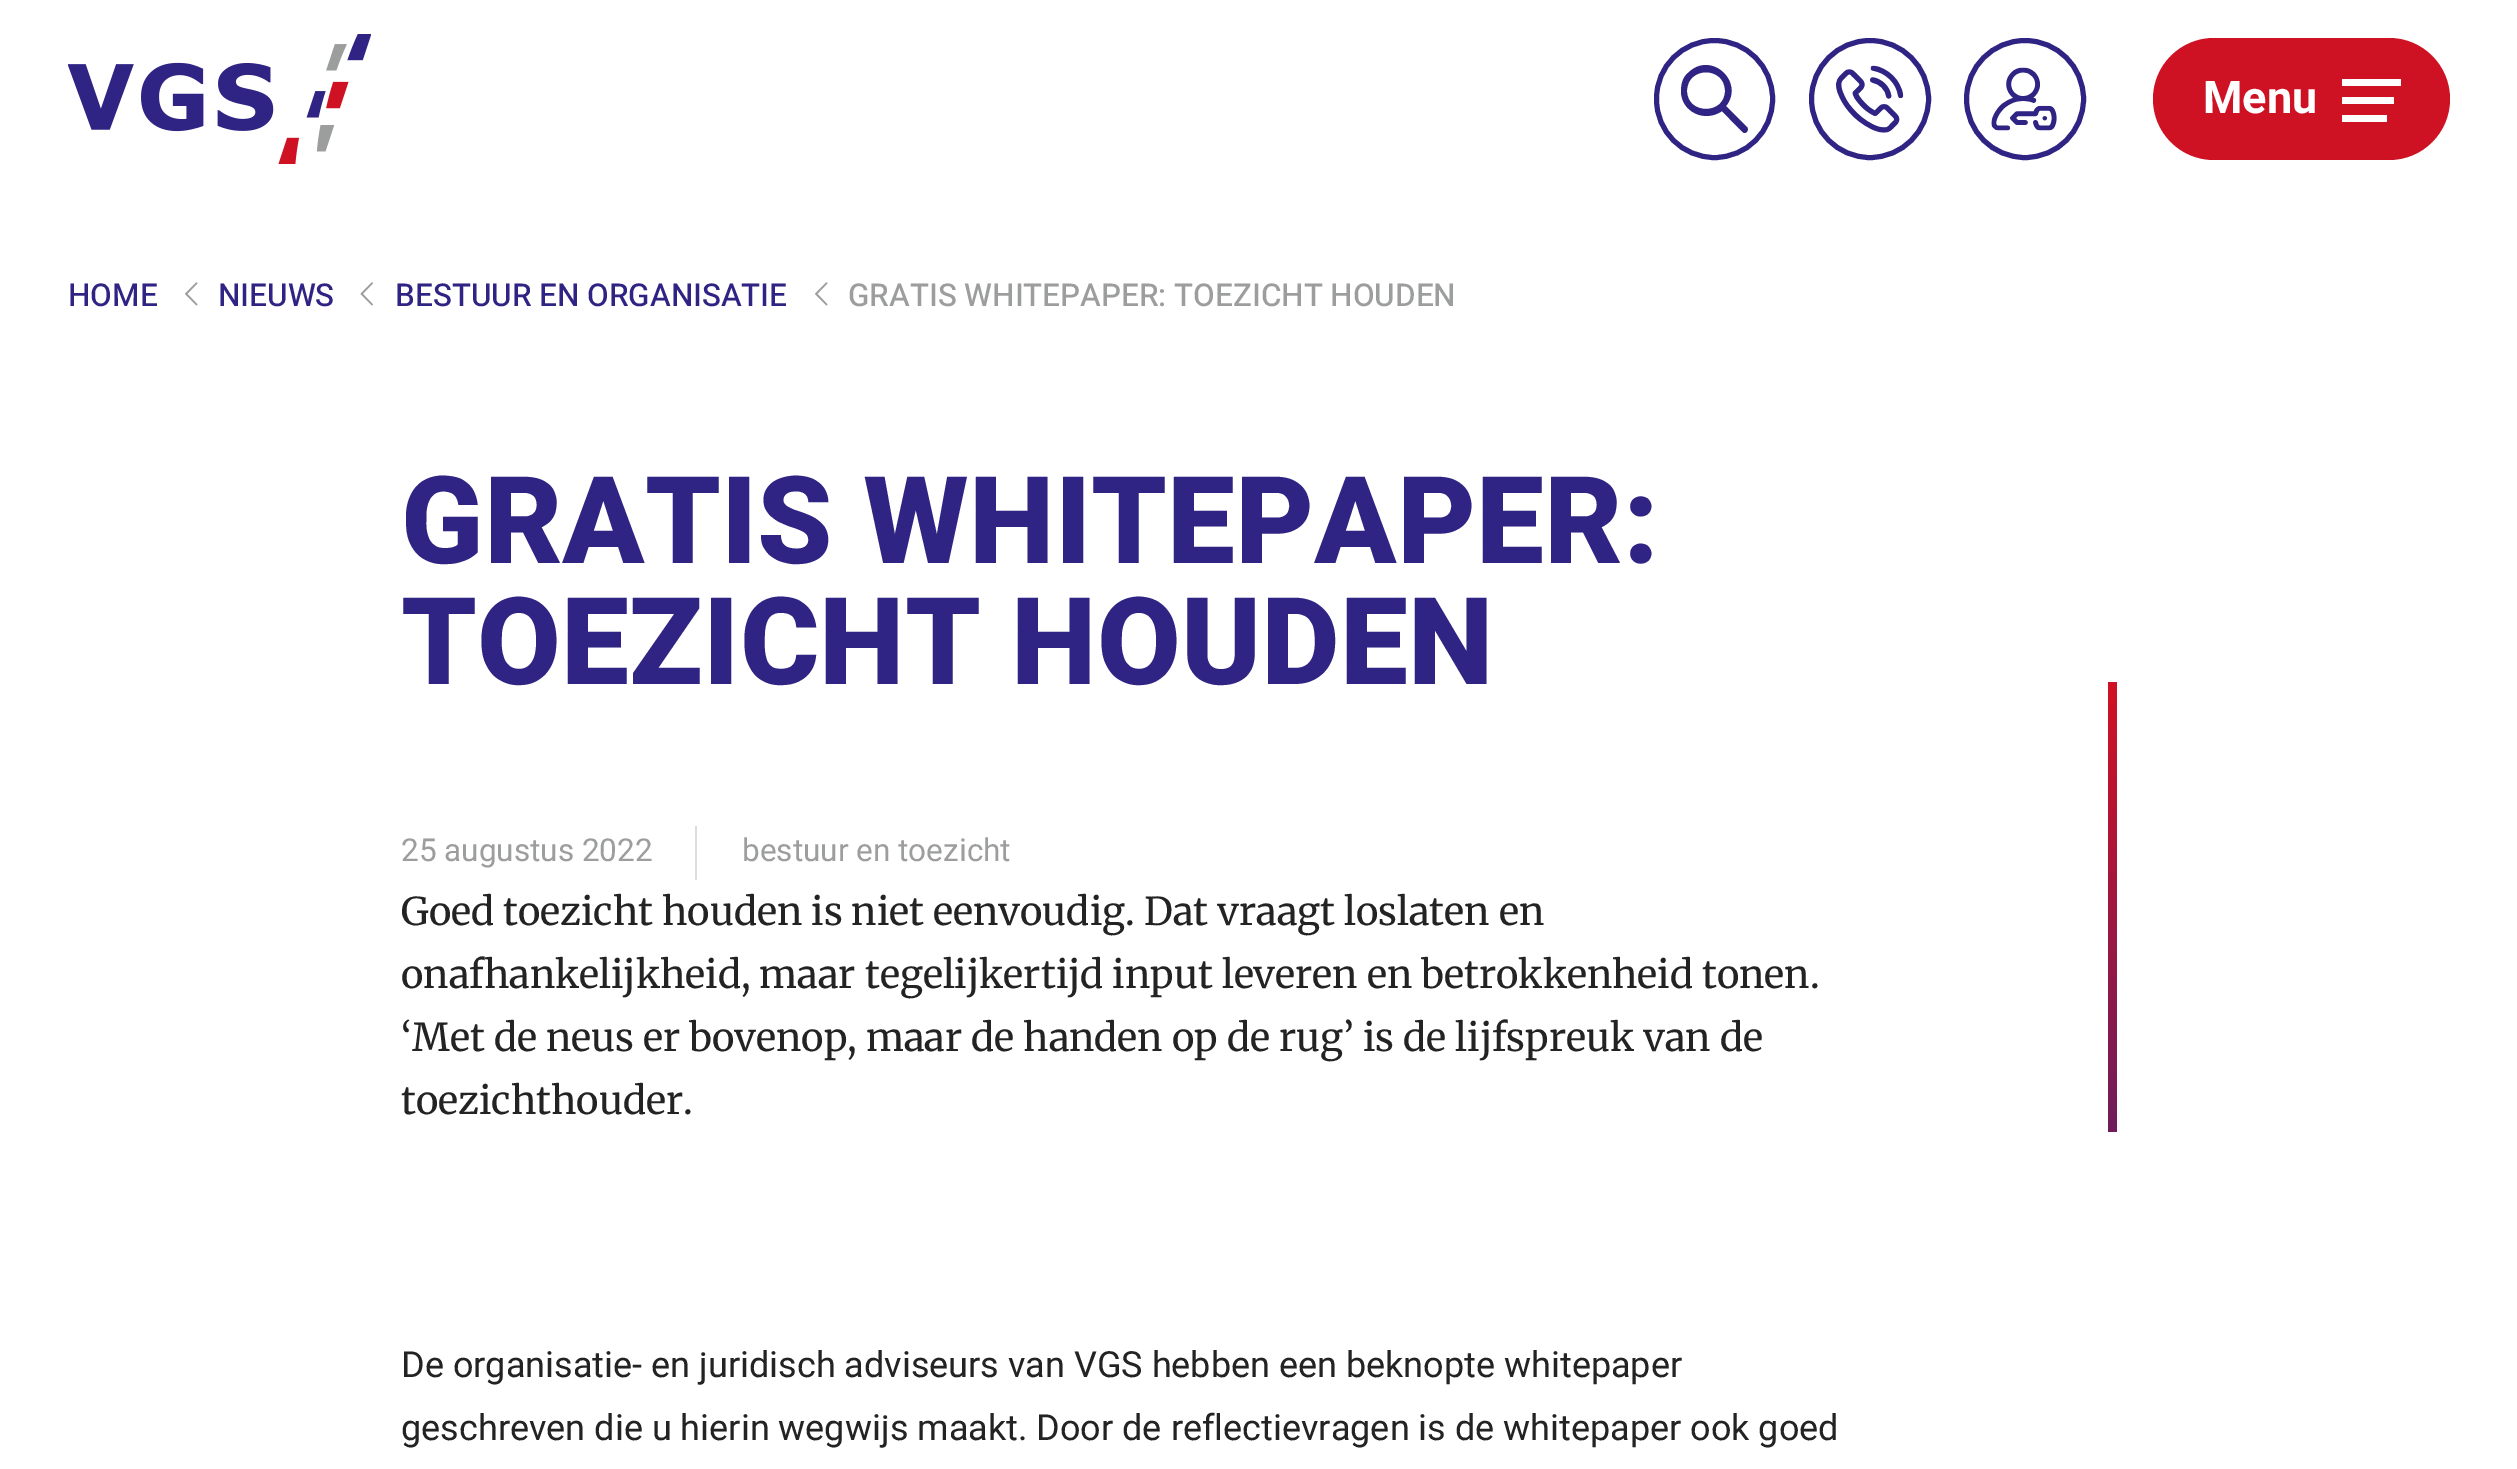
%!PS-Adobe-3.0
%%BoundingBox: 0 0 2517 1469
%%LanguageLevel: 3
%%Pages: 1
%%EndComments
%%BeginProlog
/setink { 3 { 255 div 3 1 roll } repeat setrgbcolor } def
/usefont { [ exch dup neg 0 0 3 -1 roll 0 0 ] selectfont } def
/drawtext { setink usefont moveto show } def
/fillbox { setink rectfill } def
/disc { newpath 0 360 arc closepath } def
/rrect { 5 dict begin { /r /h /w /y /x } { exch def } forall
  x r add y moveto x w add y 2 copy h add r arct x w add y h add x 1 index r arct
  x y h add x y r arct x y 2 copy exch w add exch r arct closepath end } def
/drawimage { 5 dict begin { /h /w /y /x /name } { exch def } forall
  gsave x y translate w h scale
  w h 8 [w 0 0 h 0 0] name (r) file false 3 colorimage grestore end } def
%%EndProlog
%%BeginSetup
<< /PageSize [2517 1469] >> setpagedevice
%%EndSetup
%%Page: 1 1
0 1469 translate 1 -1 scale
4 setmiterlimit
0 0 2517 1469 255 255 255 fillbox
(assets/img1.rgb) 68 34 303 130 drawimage
47 36 131 setink
5 setlinewidth
1656.5 40.5 116 117 58 rrect stroke
1687 91 moveto 1687 66 1725 66 1725 91 curveto 1725 115 1687 115 1687 91 curveto 1681 91 moveto 1681 112 1705 123 1722 111 curveto 1725 114 1742 132 1744 133 curveto 1747 133 1749 130 1747 127 curveto 1726 106 lineto 1745 82 1711 50 1688 73 curveto 1683 77 1681 84 1681 91 curveto eofill
1870 99 58.5 disc stroke
(assets/img2.rgb) 1836 65 68 68 drawimage
2025 99 58.5 disc stroke
(assets/img3.rgb) 1991 67 66 64 drawimage
206 18 36 setink
2153 38 297 122 61 rrect fill
(Menu) 2203 113 /Heebo-Bold 45 255 255 255 drawtext
2342 79 59 7 255 255 255 fillbox
2342 97 52 7 255 255 255 fillbox
2342 115 45 7 255 255 255 fillbox
(HOME) 68 306 /Heebo-Medium 31.5 47 36 131 drawtext
(assets/img4.rgb) 185 282 13 24 drawimage
(NIEUWS) 218 306 /Heebo-Medium 31.5 47 36 131 drawtext
(assets/img5.rgb) 360 282 13 24 drawimage
(BESTUUR EN ORGANISATIE) 395 306 /Heebo-Medium 31.5 47 36 131 drawtext
(assets/img4.rgb) 815 282 13 24 drawimage
(GRATIS WHITEPAPER: TOEZICHT HOUDEN) 848 306 /Heebo-Medium 31.5 156 157 157 drawtext
(GRATIS WHITEPAPER:) 401 563 /Heebo-ExtraBold 121.5 47 36 131 drawtext
(TOEZICHT HOUDEN) 401 684 /Heebo-ExtraBold 121.5 47 36 131 drawtext
(25 augustus 2022) 401 861 /Heebo-Regular 31.5 156 157 157 drawtext
695 826 2 54 220 220 220 fillbox
(bestuur en toezicht) 742 861 /Heebo-Regular 31.5 156 157 157 drawtext
gsave 2108 682 moveto 2117 682 lineto 2117 1132 lineto 2108 1132 lineto closepath clip newpath
<< /ShadingType 2 /ColorSpace /DeviceRGB /Coords [2117 682 2117 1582] /Extend [true true] /Function << /FunctionType 3 /Domain [0 1] /Functions [<< /FunctionType 2 /Domain [0 1] /C0 [0.808 0.071 0.141] /C1 [0.808 0.071 0.141] /N 1 >> << /FunctionType 2 /Domain [0 1] /C0 [0.804 0.071 0.141] /C1 [0.184 0.141 0.514] /N 1 >> << /FunctionType 2 /Domain [0 1] /C0 [0.184 0.141 0.514] /C1 [0.184 0.141 0.514] /N 1 >>] /Bounds [0.02 0.83] /Encode [0 1 0 1 0 1] >> >> shfill grestore
(Goed toezicht houden is niet eenvoudig. Dat vraagt loslaten en) 401 925 /Merriweather-Regular 38.25 35 35 35 drawtext
(onafhankelijkheid, maar tegelijkertijd input leveren en betrokkenheid tonen.) 401 988 /Merriweather-Regular 38.25 35 35 35 drawtext
(‘Met de neus er bovenop, maar de handen op de rug’ is de lijfspreuk van de) 401 1051 /Merriweather-Regular 38.25 35 35 35 drawtext
(toezichthouder.) 401 1114 /Merriweather-Regular 38.25 35 35 35 drawtext
(De organisatie- en juridisch adviseurs van VGS hebben een beknopte whitepaper) 401 1377 /Heebo-Regular 36 35 35 35 drawtext
(geschreven die u hierin wegwijs maakt. Door de reflectievragen is de whitepaper ook goed) 401 1440 /Heebo-Regular 36 35 35 35 drawtext
showpage
%%EOF
